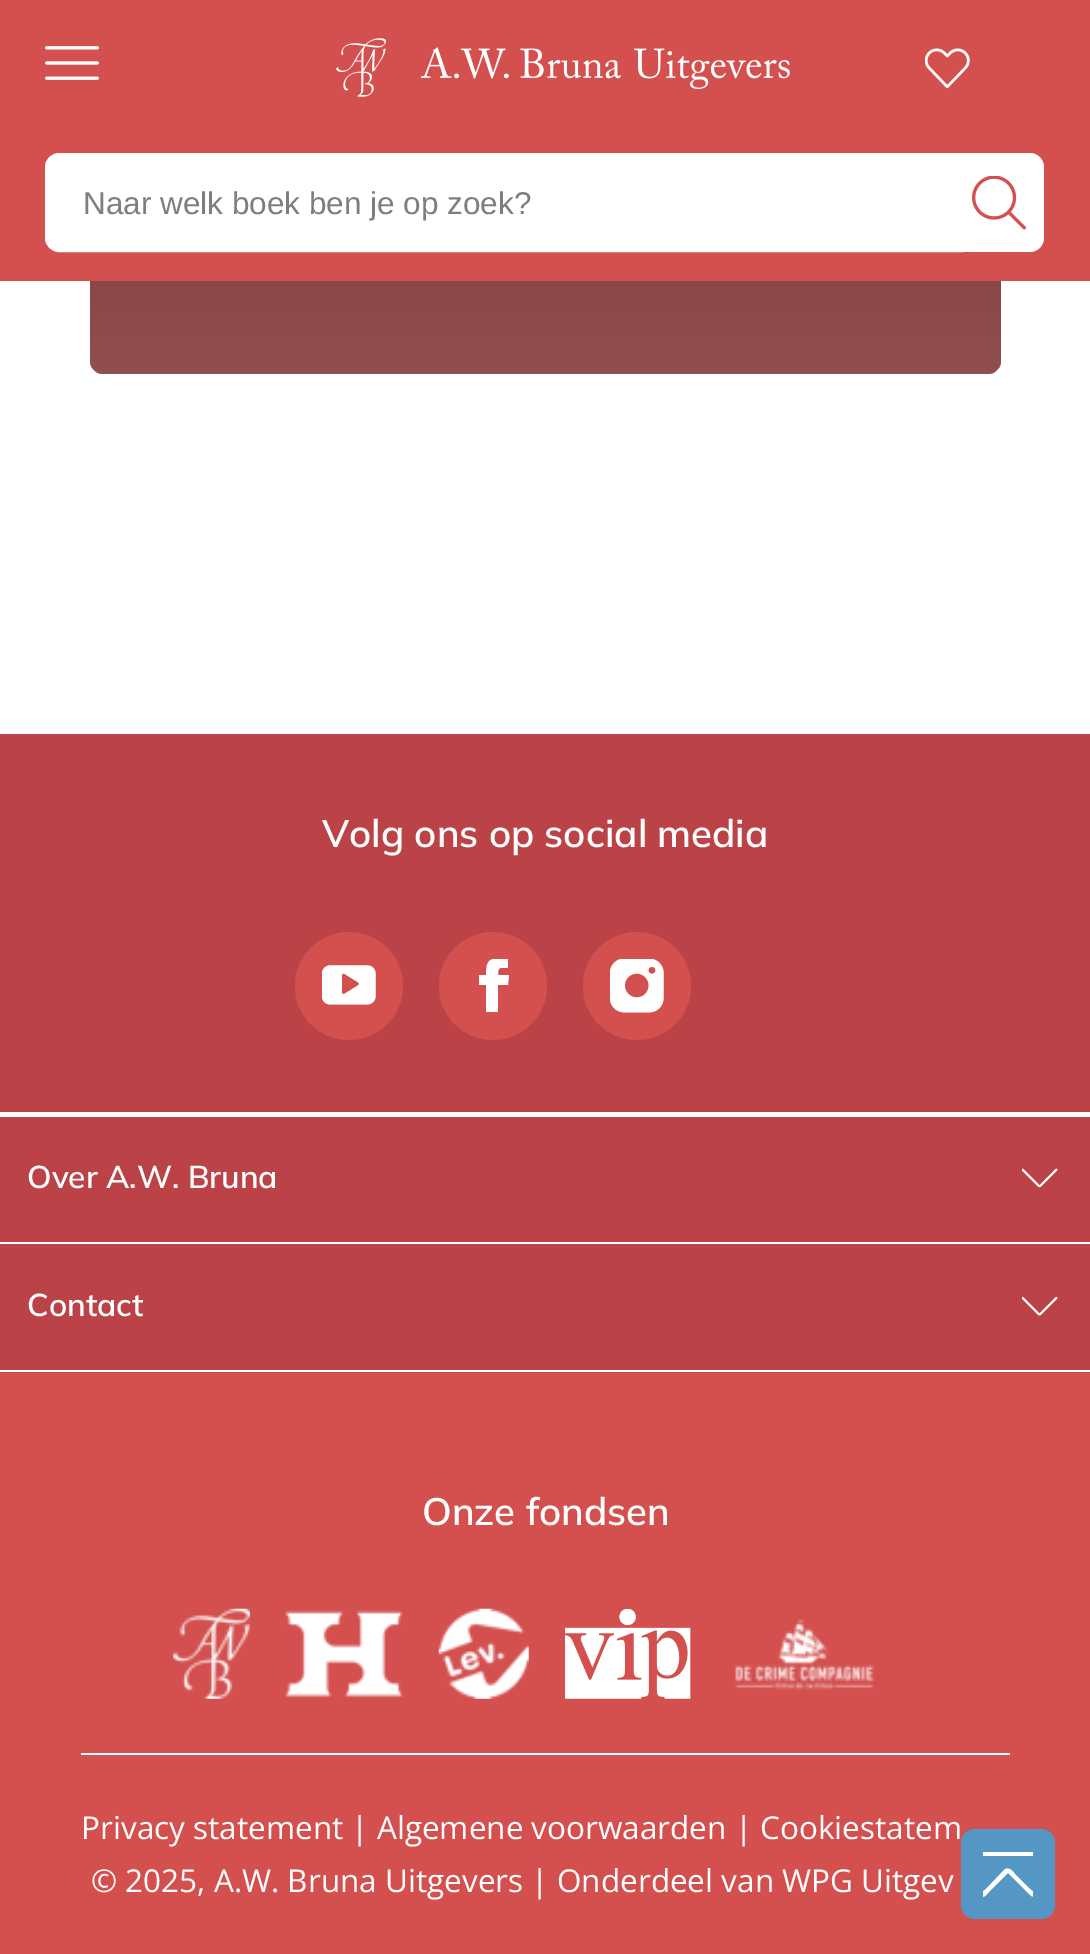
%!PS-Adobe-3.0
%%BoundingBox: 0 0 1090 1954
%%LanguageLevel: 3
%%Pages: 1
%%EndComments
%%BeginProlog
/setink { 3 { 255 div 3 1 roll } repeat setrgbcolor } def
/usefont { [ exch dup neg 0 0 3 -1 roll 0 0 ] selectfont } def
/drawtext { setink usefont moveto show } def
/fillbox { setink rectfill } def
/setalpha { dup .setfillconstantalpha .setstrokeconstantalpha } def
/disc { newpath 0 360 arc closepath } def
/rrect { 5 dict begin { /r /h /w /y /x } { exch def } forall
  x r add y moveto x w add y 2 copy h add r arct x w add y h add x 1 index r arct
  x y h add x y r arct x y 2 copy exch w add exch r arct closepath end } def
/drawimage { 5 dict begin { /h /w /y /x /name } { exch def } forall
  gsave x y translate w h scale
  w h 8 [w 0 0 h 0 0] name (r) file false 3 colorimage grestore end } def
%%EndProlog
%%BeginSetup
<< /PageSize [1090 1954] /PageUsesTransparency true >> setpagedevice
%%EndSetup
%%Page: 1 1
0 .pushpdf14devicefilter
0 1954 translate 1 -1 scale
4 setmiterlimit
0 0 1090 1954 255 255 255 fillbox
211 80 79 setink
90 92 911 282 14 rrect fill
0.5 setalpha
gsave 90 92 911 282 14 rrect clip newpath
<< /ShadingType 2 /ColorSpace /DeviceRGB /Coords [546 374 546 92] /Extend [true true] /Function << /FunctionType 2 /Domain [0 1] /C0 [0.306 0.306 0.306] /C1 [0.133 0.133 0.133] /N 1 >> >> shfill grestore
1 setalpha
0 0 1090 281 211 80 79 fillbox
(assets/img1.rgb) 45 46 54 34 drawimage
(assets/img2.rgb) 336 38 51 59 drawimage
(assets/img3.rgb) 421 47 369 42 drawimage
(assets/img4.rgb) 925 48 45 41 drawimage
255 255 255 setink
59 154 moveto 962 154 lineto 962 251 lineto 59 251 lineto 52 251 46 245 46 238 curveto 46 167 lineto 46 160 52 154 59 154 curveto closepath gsave fill grestore
2 setlinewidth
stroke
(Naar welk boek ben je op zoek?) 83 214 /LiberationSans-Regular 31.5 128 125 125 drawtext
255 255 255 setink
961 153 moveto 1030 153 lineto 1037.5 153 1044 159.5 1044 167 curveto 1044 238 lineto 1044 245.5 1037.5 252 1030 252 curveto 961 252 lineto closepath fill
(assets/img5.rgb) 972 176 54 54 drawimage
0 734 1090 639 187 67 71 fillbox
(Volg ons op social media) 322 847 /Mulish-ExtraLight 38.25 255 255 255 drawtext
211 80 79 setink
349 986 54 disc fill
(assets/img6.rgb) 322 965 54 40 drawimage
493 986 54 disc fill
gsave
466 959 54 54 rectclip
255 255 255 setink
509 975 moveto 498 975 lineto 498 966 500 968 508 968 curveto 508 958 lineto 492 958 486 957 486 975 curveto 479 975 lineto 479 985 lineto 486 985 lineto 486 1012 lineto 498 1012 lineto 498 985 lineto 508 985 lineto closepath eofill
grestore
637 986 54 disc fill
(assets/img7.rgb) 610 959 54 54 drawimage
0 1112 1090 5 255 255 255 fillbox
0 1242 1090 2 255 255 255 fillbox
(Over A.W. Bruna) 27 1188 /Mulish-ExtraLight 31.5 255 255 255 drawtext
(assets/img8.rgb) 1022 1168 36 20 drawimage
0 1370 1090 2 255 255 255 fillbox
(Contact) 27 1316 /Mulish-ExtraLight 31.5 255 255 255 drawtext
(assets/img9.rgb) 1022 1296 36 20 drawimage
0 1373 1090 581 211 80 79 fillbox
(Onze fondsen) 422 1525 /Mulish-ExtraLight 38.25 255 255 255 drawtext
(assets/img10.rgb) 173 1608 77 91 drawimage
(assets/img11.rgb) 285 1610 118 88 drawimage
(assets/img12.rgb) 438 1608 91 91 drawimage
(assets/img13.rgb) 565 1609 126 90 drawimage
(assets/img14.rgb) 735 1618 139 72 drawimage
81 1753 929 2 255 255 255 fillbox
(Privacy statement | Algemene voorwaarden | Cookiestatem) 81 1839 /OpenSans-Regular 31.5 255 255 255 drawtext
(© 2025, A.W. Bruna Uitgevers | Onderdeel van WPG Uitgev) 91 1892 /OpenSans-Regular 31.5 255 255 255 drawtext
84 151 197 setink
961 1829 94 90 14 rrect fill
gsave
983 1850 50 49 rectclip
255 255 255 setink
974 1856 moveto 971 1856 971 1852 974 1852 curveto 1042 1852 lineto 1045 1852 1044 1856 1042 1856 curveto closepath 1031 1896 moveto 1008 1873 lineto 989 1892 lineto 988 1893 983 1900 981 1895 curveto 980 1893 985 1890 986 1889 curveto 1005 1869 lineto 1009 1867 1013 1871 1015 1874 curveto 1030 1889 lineto 1031 1890 1038 1895 1034 1897 curveto closepath eofill
grestore
.poppdf14devicefilter showpage
%%EOF
